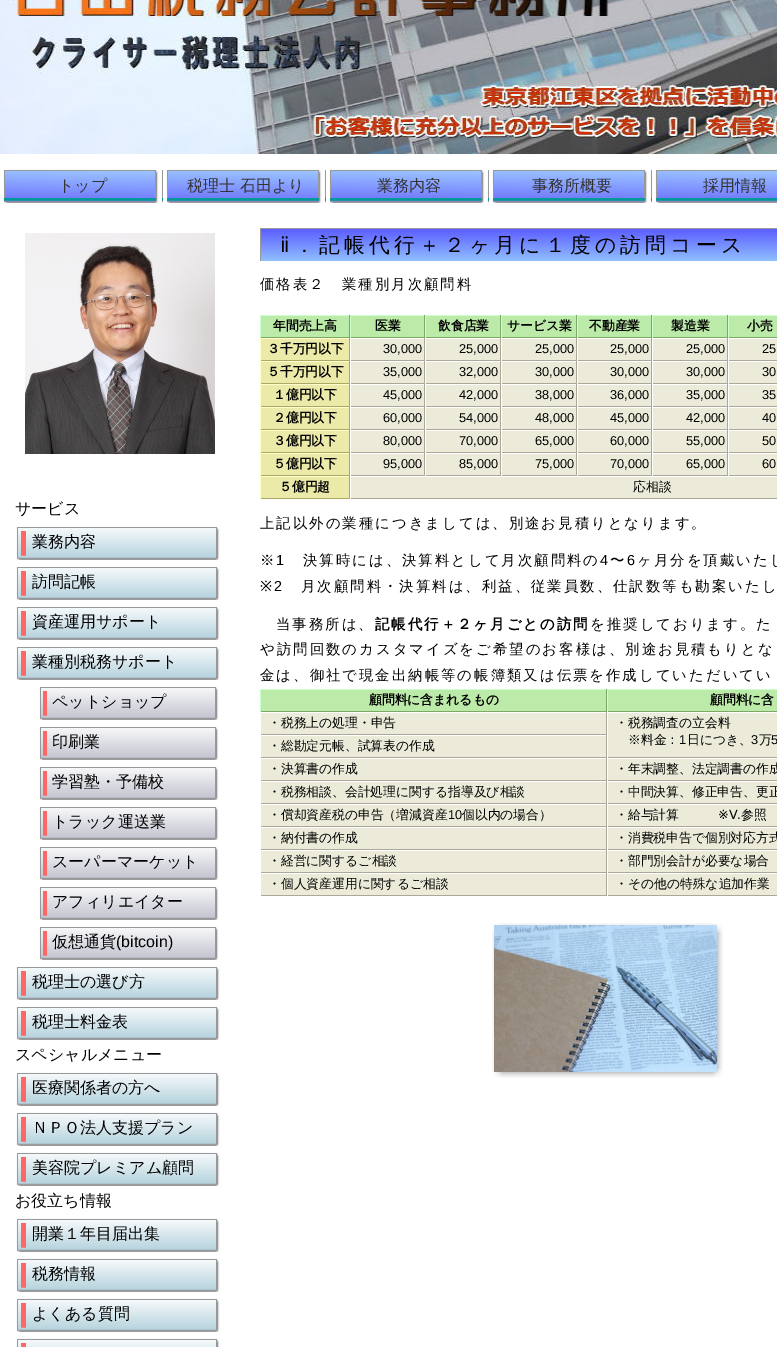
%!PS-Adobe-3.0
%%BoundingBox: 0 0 777 1347
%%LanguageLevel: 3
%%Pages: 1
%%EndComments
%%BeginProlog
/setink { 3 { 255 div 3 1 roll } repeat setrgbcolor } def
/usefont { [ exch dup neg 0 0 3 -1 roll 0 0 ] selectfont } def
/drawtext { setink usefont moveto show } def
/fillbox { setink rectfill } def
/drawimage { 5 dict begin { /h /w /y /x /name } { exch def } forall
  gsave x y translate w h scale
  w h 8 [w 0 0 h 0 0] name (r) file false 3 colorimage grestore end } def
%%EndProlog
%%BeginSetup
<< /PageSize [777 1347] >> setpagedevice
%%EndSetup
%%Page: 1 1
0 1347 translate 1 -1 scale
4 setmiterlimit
0 0 777 1347 255 255 255 fillbox
(assets/img1.rgb) 0 0 777 154 drawimage
(assets/img2.rgb) 3 169 160 34 drawimage
(トップ) 58 191 /WenQuanYiZenHei-Medium 16 51 51 51 drawtext
(assets/img2.rgb) 166 169 160 34 drawimage
(税理士 石田より) 187 191 /WenQuanYiZenHei-Medium 16 51 51 51 drawtext
(assets/img2.rgb) 329 169 160 34 drawimage
(業務内容) 377 191 /WenQuanYiZenHei-Medium 16 51 51 51 drawtext
(assets/img2.rgb) 492 169 160 34 drawimage
(事務所概要) 532 191 /WenQuanYiZenHei-Medium 16 51 51 51 drawtext
(assets/img3.rgb) 655 169 122 34 drawimage
(採用情報) 703 191 /WenQuanYiZenHei-Medium 16 51 51 51 drawtext
(assets/img4.rgb) 25 233 190 221 drawimage
(サービス) 15 514 /WenQuanYiZenHei-Medium 16 0 0 0 drawtext
(assets/img5.rgb) 16 526 204 34 drawimage
(業務内容) 32 547 /WenQuanYiZenHei-Medium 16 0 0 0 drawtext
(assets/img5.rgb) 16 566 204 34 drawimage
(訪問記帳) 32 587 /WenQuanYiZenHei-Medium 16 0 0 0 drawtext
(assets/img5.rgb) 16 606 204 34 drawimage
(資産運用サポート) 32 627 /WenQuanYiZenHei-Medium 16 0 0 0 drawtext
(assets/img5.rgb) 16 646 204 34 drawimage
(業種別税務サポート) 32 667 /WenQuanYiZenHei-Medium 16 0 0 0 drawtext
(assets/img6.rgb) 39 686 180 34 drawimage
(ペットショップ) 52 707 /WenQuanYiZenHei-Medium 16 0 0 0 drawtext
(assets/img6.rgb) 39 726 180 34 drawimage
(印刷業) 52 747 /WenQuanYiZenHei-Medium 16 0 0 0 drawtext
(assets/img6.rgb) 39 766 180 34 drawimage
(学習塾・予備校) 52 787 /WenQuanYiZenHei-Medium 16 0 0 0 drawtext
(assets/img6.rgb) 39 806 180 34 drawimage
(トラック運送業) 52 827 /WenQuanYiZenHei-Medium 16 0 0 0 drawtext
(assets/img6.rgb) 39 846 180 34 drawimage
(スーパーマーケット) 52 867 /WenQuanYiZenHei-Medium 16 0 0 0 drawtext
(assets/img6.rgb) 39 886 180 34 drawimage
(アフィリエイター) 52 907 /WenQuanYiZenHei-Medium 16 0 0 0 drawtext
(assets/img6.rgb) 39 926 180 34 drawimage
(仮想通貨) 52 947 /WenQuanYiZenHei-Medium 16 0 0 0 drawtext
(\(bitcoin\)) 116 947 /LiberationSans-Regular 16 0 0 0 drawtext
(assets/img5.rgb) 16 966 204 34 drawimage
(税理士の選び方) 32 987 /WenQuanYiZenHei-Medium 16 0 0 0 drawtext
(assets/img5.rgb) 16 1006 204 34 drawimage
(税理士料金表) 32 1027 /WenQuanYiZenHei-Medium 16 0 0 0 drawtext
(スペシャルメニュー) 15 1060 /WenQuanYiZenHei-Medium 16 0 0 0 drawtext
(assets/img5.rgb) 16 1072 204 34 drawimage
(医療関係者の方へ) 32 1093 /WenQuanYiZenHei-Medium 16 0 0 0 drawtext
(assets/img5.rgb) 16 1112 204 34 drawimage
(ＮＰＯ法人支援プラン) 32 1133 /WenQuanYiZenHei-Medium 16 0 0 0 drawtext
(assets/img5.rgb) 16 1152 204 34 drawimage
(美容院プレミアム顧問) 32 1173 /WenQuanYiZenHei-Medium 16 0 0 0 drawtext
(お役立ち情報) 15 1206 /WenQuanYiZenHei-Medium 16 0 0 0 drawtext
(assets/img5.rgb) 16 1218 204 34 drawimage
(開業１年目届出集) 32 1239 /WenQuanYiZenHei-Medium 16 0 0 0 drawtext
(assets/img5.rgb) 16 1258 204 34 drawimage
(税務情報) 32 1279 /WenQuanYiZenHei-Medium 16 0 0 0 drawtext
(assets/img5.rgb) 16 1298 204 34 drawimage
(よくある質問) 32 1319 /WenQuanYiZenHei-Medium 16 0 0 0 drawtext
(assets/img7.rgb) 16 1338 204 9 drawimage
(assets/img8.rgb) 260 228 517 33 drawimage
/DejaVuSans-Regular 20.8 usefont
280 252 moveto 4.2 0 (ⅱ) ashow
/WenQuanYiZenHei-Medium 20.8 usefont
294 252 moveto 4.2 0 (．記帳代行＋２ヶ月に１度の訪問コース) ashow
/WenQuanYiZenHei-Medium 14.4 usefont
260 289 moveto 2 0 (価格表２　業種別月次顧問料) ashow
261 316 88 21 188 234 168 fillbox
260 315 517 1 204 255 204 fillbox
349 315 1 23 124 168 102 fillbox
260 337 90 1 124 168 102 fillbox
260 315 1 23 204 255 204 fillbox
(年間売上高) 273 330 /WenQuanYiZenHei-Bold 12.8 0 0 0 drawtext
351 316 73 21 188 234 168 fillbox
424 315 1 23 124 168 102 fillbox
350 337 75 1 124 168 102 fillbox
350 315 1 23 204 255 204 fillbox
(医業) 375 330 /WenQuanYiZenHei-Bold 12.8 0 0 0 drawtext
426 316 74 21 188 234 168 fillbox
500 315 1 23 124 168 102 fillbox
425 337 76 1 124 168 102 fillbox
425 315 1 23 204 255 204 fillbox
(飲食店業) 438 330 /WenQuanYiZenHei-Bold 12.8 0 0 0 drawtext
502 316 74 21 188 234 168 fillbox
576 315 1 23 124 168 102 fillbox
501 337 76 1 124 168 102 fillbox
501 315 1 23 204 255 204 fillbox
(サービス業) 507 330 /WenQuanYiZenHei-Bold 12.8 0 0 0 drawtext
578 316 73 21 188 234 168 fillbox
651 315 1 23 124 168 102 fillbox
577 337 75 1 124 168 102 fillbox
577 315 1 23 204 255 204 fillbox
(不動産業) 589 330 /WenQuanYiZenHei-Bold 12.8 0 0 0 drawtext
653 316 74 21 188 234 168 fillbox
727 315 1 23 124 168 102 fillbox
652 337 125 1 124 168 102 fillbox
652 315 1 23 204 255 204 fillbox
(製造業) 671 330 /WenQuanYiZenHei-Bold 12.8 0 0 0 drawtext
729 316 48 21 188 234 168 fillbox
728 315 1 23 204 255 204 fillbox
(小売) 747 330 /WenQuanYiZenHei-Bold 12.8 0 0 0 drawtext
261 339 88 21 236 234 168 fillbox
260 338 90 1 255 255 204 fillbox
349 338 1 23 172 168 102 fillbox
260 360 90 1 172 168 102 fillbox
260 338 1 23 255 255 204 fillbox
(３千万円以下) 267 353 /WenQuanYiZenHei-Bold 12.8 0 0 0 drawtext
351 339 73 21 236 234 216 fillbox
424 338 1 138 172 168 153 fillbox
350 360 75 1 172 168 153 fillbox
350 360 1 1 255 255 255 fillbox
(30,000) 383 353 /LiberationSans-Regular 12.8 0 0 0 drawtext
426 339 74 21 236 234 216 fillbox
500 338 1 138 172 168 153 fillbox
425 360 76 1 172 168 153 fillbox
425 360 1 1 255 255 255 fillbox
(25,000) 459 353 /LiberationSans-Regular 12.8 0 0 0 drawtext
502 339 74 21 236 234 216 fillbox
576 338 1 138 172 168 153 fillbox
501 360 76 1 172 168 153 fillbox
501 360 1 1 255 255 255 fillbox
(25,000) 535 353 /LiberationSans-Regular 12.8 0 0 0 drawtext
578 339 73 21 236 234 216 fillbox
651 338 1 138 172 168 153 fillbox
577 360 75 1 172 168 153 fillbox
577 360 1 1 255 255 255 fillbox
(25,000) 610 353 /LiberationSans-Regular 12.8 0 0 0 drawtext
653 339 74 21 236 234 216 fillbox
727 338 1 138 172 168 153 fillbox
652 360 125 1 172 168 153 fillbox
652 360 1 1 255 255 255 fillbox
(25,000) 686 353 /LiberationSans-Regular 12.8 0 0 0 drawtext
729 339 48 21 236 234 216 fillbox
728 360 1 1 255 255 255 fillbox
(25) 762 353 /LiberationSans-Regular 12.8 0 0 0 drawtext
261 362 88 21 236 234 168 fillbox
260 361 90 1 255 255 204 fillbox
349 361 1 23 172 168 102 fillbox
260 383 90 1 172 168 102 fillbox
260 361 1 23 255 255 204 fillbox
(５千万円以下) 267 376 /WenQuanYiZenHei-Bold 12.8 0 0 0 drawtext
351 362 73 21 236 234 216 fillbox
350 383 427 1 172 168 153 fillbox
350 383 1 1 255 255 255 fillbox
(35,000) 383 376 /LiberationSans-Regular 12.8 0 0 0 drawtext
426 362 74 21 236 234 216 fillbox
425 383 1 1 255 255 255 fillbox
(32,000) 459 376 /LiberationSans-Regular 12.8 0 0 0 drawtext
502 362 74 21 236 234 216 fillbox
501 383 1 1 255 255 255 fillbox
(30,000) 535 376 /LiberationSans-Regular 12.8 0 0 0 drawtext
578 362 73 21 236 234 216 fillbox
577 383 1 1 255 255 255 fillbox
(30,000) 610 376 /LiberationSans-Regular 12.8 0 0 0 drawtext
653 362 74 21 236 234 216 fillbox
652 383 1 1 255 255 255 fillbox
(30,000) 686 376 /LiberationSans-Regular 12.8 0 0 0 drawtext
729 362 48 21 236 234 216 fillbox
728 383 1 1 255 255 255 fillbox
(30) 762 376 /LiberationSans-Regular 12.8 0 0 0 drawtext
261 385 88 21 236 234 168 fillbox
260 384 90 1 255 255 204 fillbox
349 384 1 23 172 168 102 fillbox
260 406 90 1 172 168 102 fillbox
260 384 1 23 255 255 204 fillbox
(１億円以下) 273 399 /WenQuanYiZenHei-Bold 12.8 0 0 0 drawtext
351 385 73 21 236 234 216 fillbox
350 406 427 1 172 168 153 fillbox
350 406 1 1 255 255 255 fillbox
(45,000) 383 399 /LiberationSans-Regular 12.8 0 0 0 drawtext
426 385 74 21 236 234 216 fillbox
425 406 1 1 255 255 255 fillbox
(42,000) 459 399 /LiberationSans-Regular 12.8 0 0 0 drawtext
502 385 74 21 236 234 216 fillbox
501 406 1 1 255 255 255 fillbox
(38,000) 535 399 /LiberationSans-Regular 12.8 0 0 0 drawtext
578 385 73 21 236 234 216 fillbox
577 406 1 1 255 255 255 fillbox
(36,000) 610 399 /LiberationSans-Regular 12.8 0 0 0 drawtext
653 385 74 21 236 234 216 fillbox
652 406 1 1 255 255 255 fillbox
(35,000) 686 399 /LiberationSans-Regular 12.8 0 0 0 drawtext
729 385 48 21 236 234 216 fillbox
728 406 1 1 255 255 255 fillbox
(35) 762 399 /LiberationSans-Regular 12.8 0 0 0 drawtext
261 408 88 21 236 234 168 fillbox
260 407 90 1 255 255 204 fillbox
349 407 1 23 172 168 102 fillbox
260 429 90 1 172 168 102 fillbox
260 407 1 23 255 255 204 fillbox
(２億円以下) 273 422 /WenQuanYiZenHei-Bold 12.8 0 0 0 drawtext
351 408 73 21 236 234 216 fillbox
350 429 427 1 172 168 153 fillbox
350 429 1 1 255 255 255 fillbox
(60,000) 383 422 /LiberationSans-Regular 12.8 0 0 0 drawtext
426 408 74 21 236 234 216 fillbox
425 429 1 1 255 255 255 fillbox
(54,000) 459 422 /LiberationSans-Regular 12.8 0 0 0 drawtext
502 408 74 21 236 234 216 fillbox
501 429 1 1 255 255 255 fillbox
(48,000) 535 422 /LiberationSans-Regular 12.8 0 0 0 drawtext
578 408 73 21 236 234 216 fillbox
577 429 1 1 255 255 255 fillbox
(45,000) 610 422 /LiberationSans-Regular 12.8 0 0 0 drawtext
653 408 74 21 236 234 216 fillbox
652 429 1 1 255 255 255 fillbox
(42,000) 686 422 /LiberationSans-Regular 12.8 0 0 0 drawtext
729 408 48 21 236 234 216 fillbox
728 429 1 1 255 255 255 fillbox
(40) 762 422 /LiberationSans-Regular 12.8 0 0 0 drawtext
261 431 88 21 236 234 168 fillbox
260 430 90 1 255 255 204 fillbox
349 430 1 23 172 168 102 fillbox
260 452 90 1 172 168 102 fillbox
260 430 1 23 255 255 204 fillbox
(３億円以下) 273 445 /WenQuanYiZenHei-Bold 12.8 0 0 0 drawtext
351 431 73 21 236 234 216 fillbox
350 452 427 1 172 168 153 fillbox
350 452 1 1 255 255 255 fillbox
(80,000) 383 445 /LiberationSans-Regular 12.8 0 0 0 drawtext
426 431 74 21 236 234 216 fillbox
425 452 1 1 255 255 255 fillbox
(70,000) 459 445 /LiberationSans-Regular 12.8 0 0 0 drawtext
502 431 74 21 236 234 216 fillbox
501 452 1 1 255 255 255 fillbox
(65,000) 535 445 /LiberationSans-Regular 12.8 0 0 0 drawtext
578 431 73 21 236 234 216 fillbox
577 452 1 1 255 255 255 fillbox
(60,000) 610 445 /LiberationSans-Regular 12.8 0 0 0 drawtext
653 431 74 21 236 234 216 fillbox
652 452 1 1 255 255 255 fillbox
(55,000) 686 445 /LiberationSans-Regular 12.8 0 0 0 drawtext
729 431 48 21 236 234 216 fillbox
728 452 1 1 255 255 255 fillbox
(50) 762 445 /LiberationSans-Regular 12.8 0 0 0 drawtext
261 454 88 21 236 234 168 fillbox
260 453 90 1 255 255 204 fillbox
349 453 1 23 172 168 102 fillbox
260 475 90 1 172 168 102 fillbox
260 453 1 23 255 255 204 fillbox
(５億円以下) 273 468 /WenQuanYiZenHei-Bold 12.8 0 0 0 drawtext
351 454 73 21 236 234 216 fillbox
350 475 427 1 172 168 153 fillbox
350 475 1 1 255 255 255 fillbox
(95,000) 383 468 /LiberationSans-Regular 12.8 0 0 0 drawtext
426 454 74 21 236 234 216 fillbox
425 475 1 1 255 255 255 fillbox
(85,000) 459 468 /LiberationSans-Regular 12.8 0 0 0 drawtext
502 454 74 21 236 234 216 fillbox
501 475 1 1 255 255 255 fillbox
(75,000) 535 468 /LiberationSans-Regular 12.8 0 0 0 drawtext
578 454 73 21 236 234 216 fillbox
577 475 1 1 255 255 255 fillbox
(70,000) 610 468 /LiberationSans-Regular 12.8 0 0 0 drawtext
653 454 74 21 236 234 216 fillbox
652 475 1 1 255 255 255 fillbox
(65,000) 686 468 /LiberationSans-Regular 12.8 0 0 0 drawtext
729 454 48 21 236 234 216 fillbox
728 475 1 1 255 255 255 fillbox
(60) 762 468 /LiberationSans-Regular 12.8 0 0 0 drawtext
261 477 88 21 236 234 168 fillbox
260 476 90 1 255 255 204 fillbox
349 476 1 23 172 168 102 fillbox
260 498 90 1 172 168 102 fillbox
260 476 1 23 255 255 204 fillbox
(５億円超) 279 491 /WenQuanYiZenHei-Bold 12.8 0 0 0 drawtext
351 477 426 21 236 234 216 fillbox
350 498 427 1 172 168 153 fillbox
350 498 1 1 255 255 255 fillbox
(応相談) 633 491 /WenQuanYiZenHei-Medium 12.8 0 0 0 drawtext
/WenQuanYiZenHei-Medium 14.4 usefont
260 528 moveto 2 0 (上記以外の業種につきましては、別途お見積りとなります。) ashow
260 565 moveto 2 0 (※) ashow
/LiberationSans-Regular 14.4 usefont
276 565 moveto 2 0 (1) ashow
/WenQuanYiZenHei-Medium 14.4 usefont
303 565 moveto 2 0 (決算時には、決算料として月次顧問料の) ashow
/LiberationSans-Regular 14.4 usefont
600 565 moveto 2 0 (4) ashow
/WenQuanYiZenHei-Medium 14.4 usefont
610 565 moveto 2 0 (〜) ashow
/LiberationSans-Regular 14.4 usefont
627 565 moveto 2 0 (6) ashow
/WenQuanYiZenHei-Medium 14.4 usefont
637 565 moveto 2 0 (ヶ月分を頂戴いたし) ashow
/NotoSans-Regular 14.4 usefont
260 591 moveto 2 0 (※) ashow
/LiberationSans-Regular 14.4 usefont
274 591 moveto 2 0 (2) ashow
/WenQuanYiZenHei-Medium 14.4 usefont
301 591 moveto 2 0 (月次顧問料・決算料は、利益、従業員数、仕訳数等も勘案いたし) ashow
276 629 moveto 2 0 (当事務所は、) ashow
/WenQuanYiZenHei-Bold 14.4 usefont
375 629 moveto 2 0 (記帳代行＋２ヶ月ごとの訪問) ashow
/WenQuanYiZenHei-Medium 14.4 usefont
590 629 moveto 2 0 (を推奨しております。た) ashow
260 654 moveto 2 0 (や訪問回数のカスタマイズをご希望のお客様は、別途お見積もりとな) ashow
260 680 moveto 2 0 (金は、御社で現金出納帳等の帳簿類又は伝票を作成していただいてい) ashow
261 690 345 21 188 234 168 fillbox
260 689 517 1 204 255 204 fillbox
606 689 1 23 124 168 102 fillbox
260 711 517 1 124 168 102 fillbox
260 689 1 23 204 255 204 fillbox
(顧問料に含まれるもの) 369 704 /WenQuanYiZenHei-Bold 12.8 0 0 0 drawtext
608 690 169 21 188 234 168 fillbox
607 689 1 23 204 255 204 fillbox
(顧問料に含) 710 704 /WenQuanYiZenHei-Bold 12.8 0 0 0 drawtext
261 713 345 21 236 234 216 fillbox
606 712 1 184 172 168 153 fillbox
260 734 347 1 172 168 153 fillbox
260 734 1 1 255 255 255 fillbox
(・税務上の処理・申告) 268 727 /WenQuanYiZenHei-Medium 12.8 0 0 0 drawtext
608 713 169 44 236 234 216 fillbox
260 757 517 1 172 168 153 fillbox
607 757 1 1 255 255 255 fillbox
(・税務調査の立会料) 615 727 /WenQuanYiZenHei-Medium 12.8 0 0 0 drawtext
(※料金：) 628 744 /WenQuanYiZenHei-Medium 12.8 0 0 0 drawtext
(1) 679 744 /LiberationSans-Regular 12.8 0 0 0 drawtext
(日につき、) 687 744 /WenQuanYiZenHei-Medium 12.8 0 0 0 drawtext
(3) 751 744 /LiberationSans-Regular 12.8 0 0 0 drawtext
(万) 759 744 /WenQuanYiZenHei-Medium 12.8 0 0 0 drawtext
(5) 771 744 /LiberationSans-Regular 12.8 0 0 0 drawtext
261 736 345 21 236 234 216 fillbox
260 757 1 1 255 255 255 fillbox
(・総勘定元帳、試算表の作成) 268 750 /WenQuanYiZenHei-Medium 12.8 0 0 0 drawtext
261 759 345 21 236 234 216 fillbox
260 780 517 1 172 168 153 fillbox
260 780 1 1 255 255 255 fillbox
(・決算書の作成) 268 773 /WenQuanYiZenHei-Medium 12.8 0 0 0 drawtext
608 759 169 21 236 234 216 fillbox
607 780 1 1 255 255 255 fillbox
(・年末調整、法定調書の作成) 615 773 /WenQuanYiZenHei-Medium 12.8 0 0 0 drawtext
261 782 345 21 236 234 216 fillbox
260 803 517 1 172 168 153 fillbox
260 803 1 1 255 255 255 fillbox
(・税務相談、会計処理に関する指導及び相談) 268 796 /WenQuanYiZenHei-Medium 12.8 0 0 0 drawtext
608 782 169 21 236 234 216 fillbox
607 803 1 1 255 255 255 fillbox
(・中間決算、修正申告、更正) 615 796 /WenQuanYiZenHei-Medium 12.8 0 0 0 drawtext
261 805 345 21 236 234 216 fillbox
260 826 517 1 172 168 153 fillbox
260 826 1 1 255 255 255 fillbox
(・償却資産税の申告（増減資産) 268 819 /WenQuanYiZenHei-Medium 12.8 0 0 0 drawtext
(10) 448 819 /LiberationSans-Regular 12.8 0 0 0 drawtext
(個以内の場合）) 462 819 /WenQuanYiZenHei-Medium 12.8 0 0 0 drawtext
608 805 169 21 236 234 216 fillbox
607 826 1 1 255 255 255 fillbox
(・給与計算) 615 819 /WenQuanYiZenHei-Medium 12.8 0 0 0 drawtext
(※Ⅴ) 718 819 /DejaVuSans-Regular 12.8 0 0 0 drawtext
(.) 737 819 /LiberationSans-Regular 12.8 0 0 0 drawtext
(参照) 741 819 /WenQuanYiZenHei-Medium 12.8 0 0 0 drawtext
261 828 345 21 236 234 216 fillbox
260 849 517 1 172 168 153 fillbox
260 849 1 1 255 255 255 fillbox
(・納付書の作成) 268 842 /WenQuanYiZenHei-Medium 12.8 0 0 0 drawtext
608 828 169 21 236 234 216 fillbox
607 849 1 1 255 255 255 fillbox
(・消費税申告で個別対応方式) 615 842 /WenQuanYiZenHei-Medium 12.8 0 0 0 drawtext
261 851 345 21 236 234 216 fillbox
260 872 517 1 172 168 153 fillbox
260 872 1 1 255 255 255 fillbox
(・経営に関するご相談) 268 865 /WenQuanYiZenHei-Medium 12.8 0 0 0 drawtext
608 851 169 21 236 234 216 fillbox
607 872 1 1 255 255 255 fillbox
(・部門別会計が必要な場合) 615 865 /WenQuanYiZenHei-Medium 12.8 0 0 0 drawtext
261 874 345 21 236 234 216 fillbox
260 895 517 1 172 168 153 fillbox
260 895 1 1 255 255 255 fillbox
(・個人資産運用に関するご相談) 268 888 /WenQuanYiZenHei-Medium 12.8 0 0 0 drawtext
608 874 169 21 236 234 216 fillbox
607 895 1 1 255 255 255 fillbox
(・その他の特殊な追加作業) 615 888 /WenQuanYiZenHei-Medium 12.8 0 0 0 drawtext
(assets/img9.rgb) 492 923 231 155 drawimage
showpage
%%EOF
